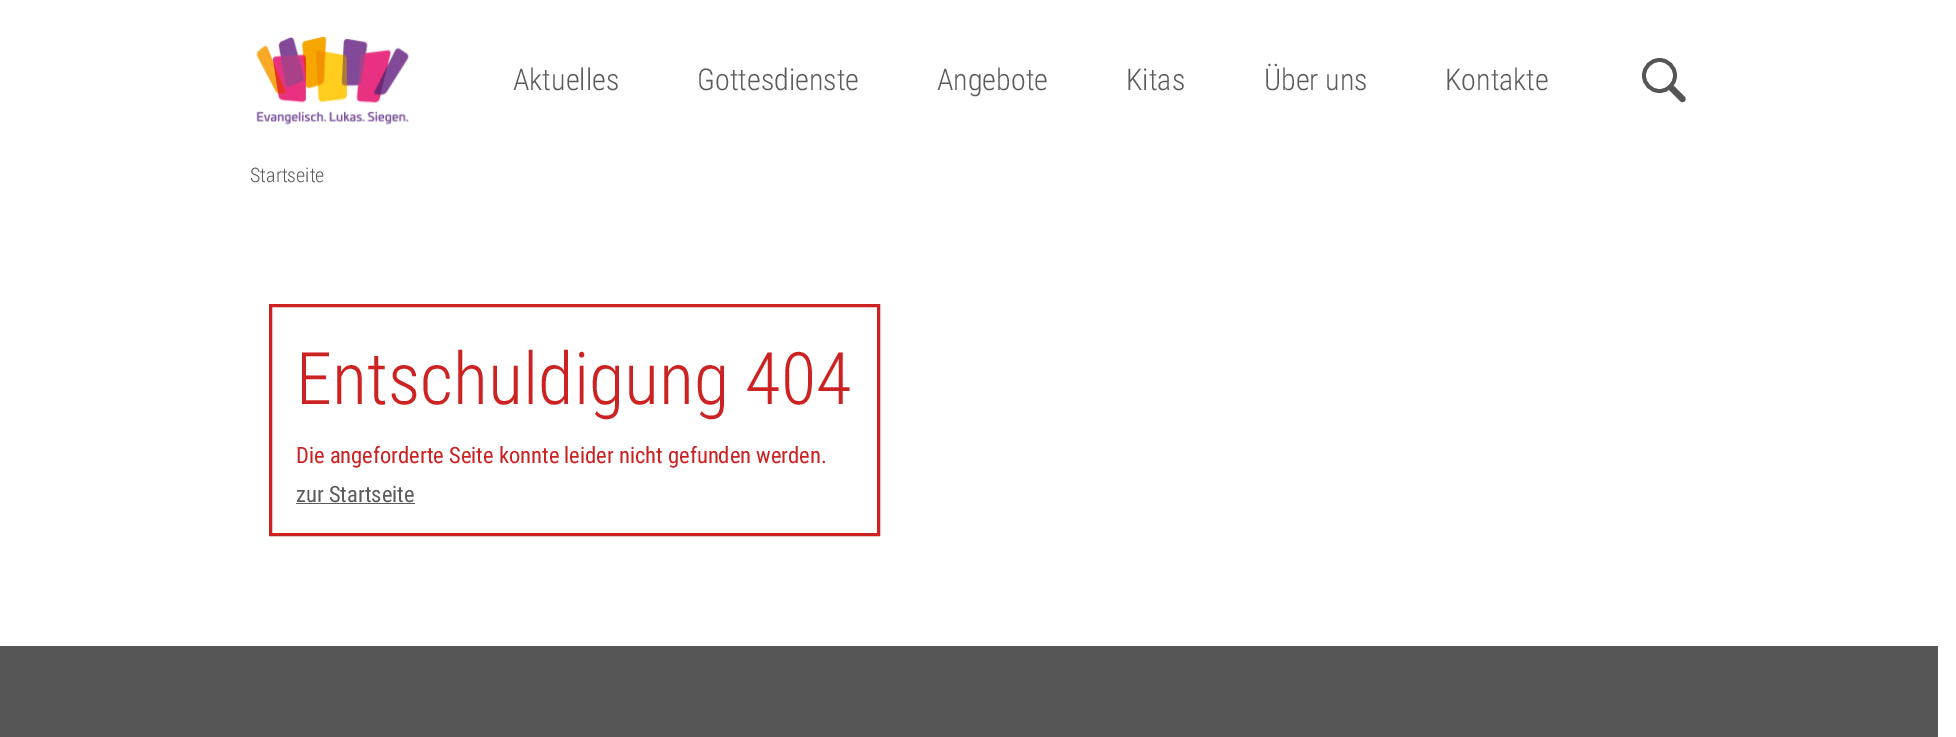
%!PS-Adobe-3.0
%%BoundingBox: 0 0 1956 737
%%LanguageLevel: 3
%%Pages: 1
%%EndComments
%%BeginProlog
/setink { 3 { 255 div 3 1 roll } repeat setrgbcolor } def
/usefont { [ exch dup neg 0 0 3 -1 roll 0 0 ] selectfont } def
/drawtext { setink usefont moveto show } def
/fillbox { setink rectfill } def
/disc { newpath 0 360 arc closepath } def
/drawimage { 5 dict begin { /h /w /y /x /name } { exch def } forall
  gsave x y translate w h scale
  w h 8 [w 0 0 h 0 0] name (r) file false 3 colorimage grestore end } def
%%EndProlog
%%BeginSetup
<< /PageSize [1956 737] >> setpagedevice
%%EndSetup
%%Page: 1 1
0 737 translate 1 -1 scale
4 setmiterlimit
0 0 1956 737 255 255 255 fillbox
(assets/img1.rgb) 256 36 153 89 drawimage
(Aktuelles) 513 90 /RobotoCondensed-Light 30 93 91 91 drawtext
(Gottesdienste) 697 90 /RobotoCondensed-Light 30 93 91 91 drawtext
(Angebote) 937 90 /RobotoCondensed-Light 30 93 91 91 drawtext
(Kitas) 1126 90 /RobotoCondensed-Light 30 93 91 91 drawtext
(Über uns) 1264 90 /RobotoCondensed-Light 30 93 91 91 drawtext
(Kontakte) 1445 90 /RobotoCondensed-Light 30 93 91 91 drawtext
85 85 85 setink
3.8 setlinewidth
1659.5 75.5 15.5 disc stroke
6.2 setlinewidth
1 setlinecap
1671 87.5 moveto 1682.5 99 lineto stroke
(Startseite) 250 182 /RobotoCondensed-Light 20 93 91 91 drawtext
204 34 34 setink
3 setlinewidth
0 setlinecap
270.5 305.5 608 229 rectstroke
(Entschuldigung 404) 296 404 /RobotoCondensed-Light 72.5 204 34 34 drawtext
(Die angeforderte Seite konnte leider nicht gefunden werden.) 296 463 /RobotoCondensed-Regular 22.5 204 34 34 drawtext
(zur Startseite) 296 502 /RobotoCondensed-Regular 22.5 93 91 91 drawtext
296 503 119 1 93 91 91 fillbox
0 646 1938 91 85 85 85 fillbox
showpage
%%EOF
